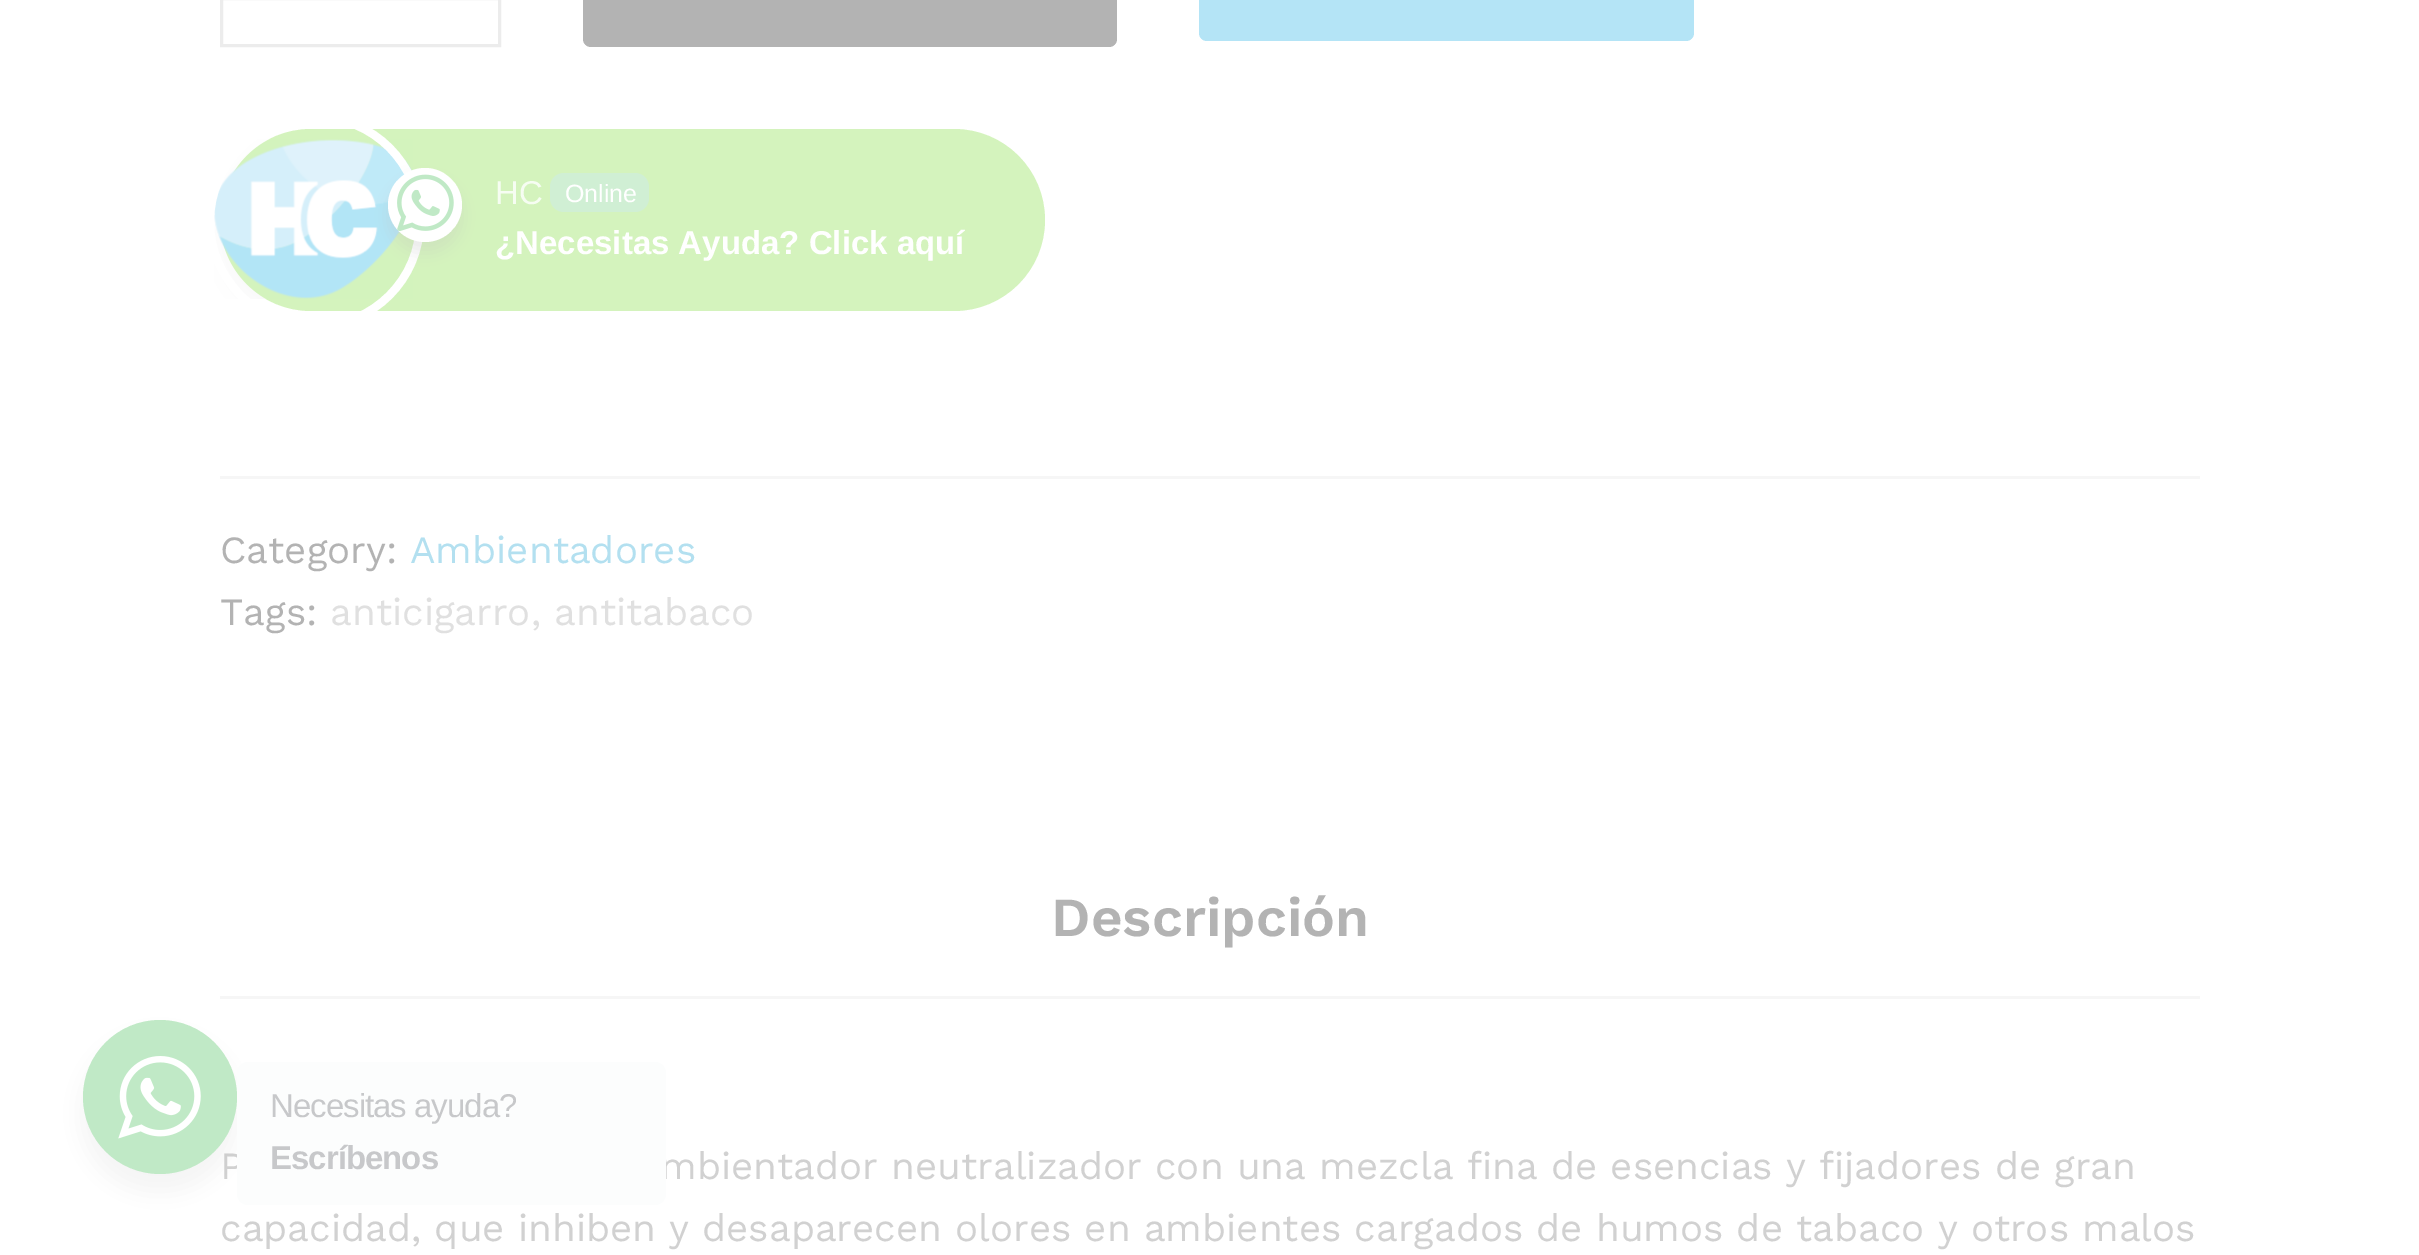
%!PS-Adobe-3.0
%%BoundingBox: 0 0 2419 1255
%%LanguageLevel: 3
%%Pages: 1
%%EndComments
%%BeginProlog
/setink { 3 { 255 div 3 1 roll } repeat setrgbcolor } def
/usefont { [ exch dup neg 0 0 3 -1 roll 0 0 ] selectfont } def
/drawtext { setink usefont moveto show } def
/fillbox { setink rectfill } def
/setalpha { dup .setfillconstantalpha .setstrokeconstantalpha } def
/disc { newpath 0 360 arc closepath } def
/rrect { 5 dict begin { /r /h /w /y /x } { exch def } forall
  x r add y moveto x w add y 2 copy h add r arct x w add y h add x 1 index r arct
  x y h add x y r arct x y 2 copy exch w add exch r arct closepath end } def
/softshadow { 12 dict begin { /a /b /q /h /w /y /x } { exch def } forall gsave /was 0 def
  9 -2 -9 { dup b mul 4 div /e exch def 1 sub .425 mul 2.718 exch exp 1 add a .99 .min exch div /now exch def
    1 1 now sub 1 was sub div sub setalpha /was now def
    w h .min e 2 mul add 0 gt { x e sub y e sub w e 2 mul add h e 2 mul add
      q e add b .6 mul add w h .min 2 div e add .min 0 .max rrect fill } if } for grestore end } def
/drawimage { 5 dict begin { /h /w /y /x /name } { exch def } forall
  gsave x y translate w h scale
  w h 8 [w 0 0 h 0 0] name (r) file false 3 colorimage grestore end } def
%%EndProlog
%%BeginSetup
<< /PageSize [2419 1255] /PageUsesTransparency true >> setpagedevice
%%EndSetup
%%Page: 1 1
0 .pushpdf14devicefilter
0 1255 translate 1 -1 scale
4 setmiterlimit
0 0 2419 1255 255 255 255 fillbox
236 236 236 setink
3 setlinewidth
221.5 -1.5 278 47 rectstroke
179 179 179 setink
583 -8 534 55 8 rrect fill
180 228 246 setink
1199 -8 495 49 8 rrect fill
212 243 189 setink
220 129 825 182 91 rrect fill
(assets/img1.rgb) 214 139 199 160 drawimage
255 255 255 setink
8 setlinewidth
210 117 210 209 104.5 rrect stroke
190 190 190 setink
388 179 74 74 37 8 0.3 softshadow
255 255 255 setink
425 205 37 disc fill
(assets/img2.rgb) 397 174 57 57 drawimage
(HC) 495 204 /LiberationSans-Regular 33 246 253 242 drawtext
208 239 212 setink
550 173 99 39 14 rrect fill
(Online) 565 202 /LiberationSans-Regular 25 255 255 255 drawtext
(¿Necesitas Ayuda? Click aquí) 495 254 /LiberationSans-Bold 33 255 255 255 drawtext
220 476 1980 3 246 246 246 fillbox
(Category:) 220 563 /WorkSans-Regular 38.5 179 179 179 drawtext
(Ambientadores) 410 563 /WorkSans-Regular 38.5 179 224 240 drawtext
(Tags:) 220 625 /WorkSans-Regular 38.5 179 179 179 drawtext
(anticigarro, antitabaco) 330 625 /WorkSans-Regular 38.5 224 224 224 drawtext
220 996 1980 3 246 246 246 fillbox
(Descripción) 1051 936 /WorkSans-SemiBold 55 179 179 179 drawtext
(P) 220 1179 /WorkSans-Regular 38.5 209 209 209 drawtext
(mbientador neutralizador con una mezcla fina de esencias y fijadores de gran) 660 1179 /WorkSans-Regular 38.5 209 209 209 drawtext
(capacidad, que inhiben y desaparecen olores en ambientes cargados de humos de tabaco y otros malos) 220 1241 /WorkSans-Regular 38.5 209 209 209 drawtext
179 179 179 setink
77 1031 165 165 82.5 11 0.14 softshadow
192 233 198 setink
160 1097 77 disc fill
(assets/img3.rgb) 118 1056 83 83 drawimage
252 253 253 setink
237 1062 429 143 11 rrect fill
/LiberationSans-Regular 33 usefont
199 200 202 setink
270 1117 moveto -1 0 (Necesitas ayuda?) ashow
/LiberationSans-Bold 33 usefont
270 1169 moveto -1 0 (Escríbenos) ashow
.poppdf14devicefilter showpage
%%EOF
